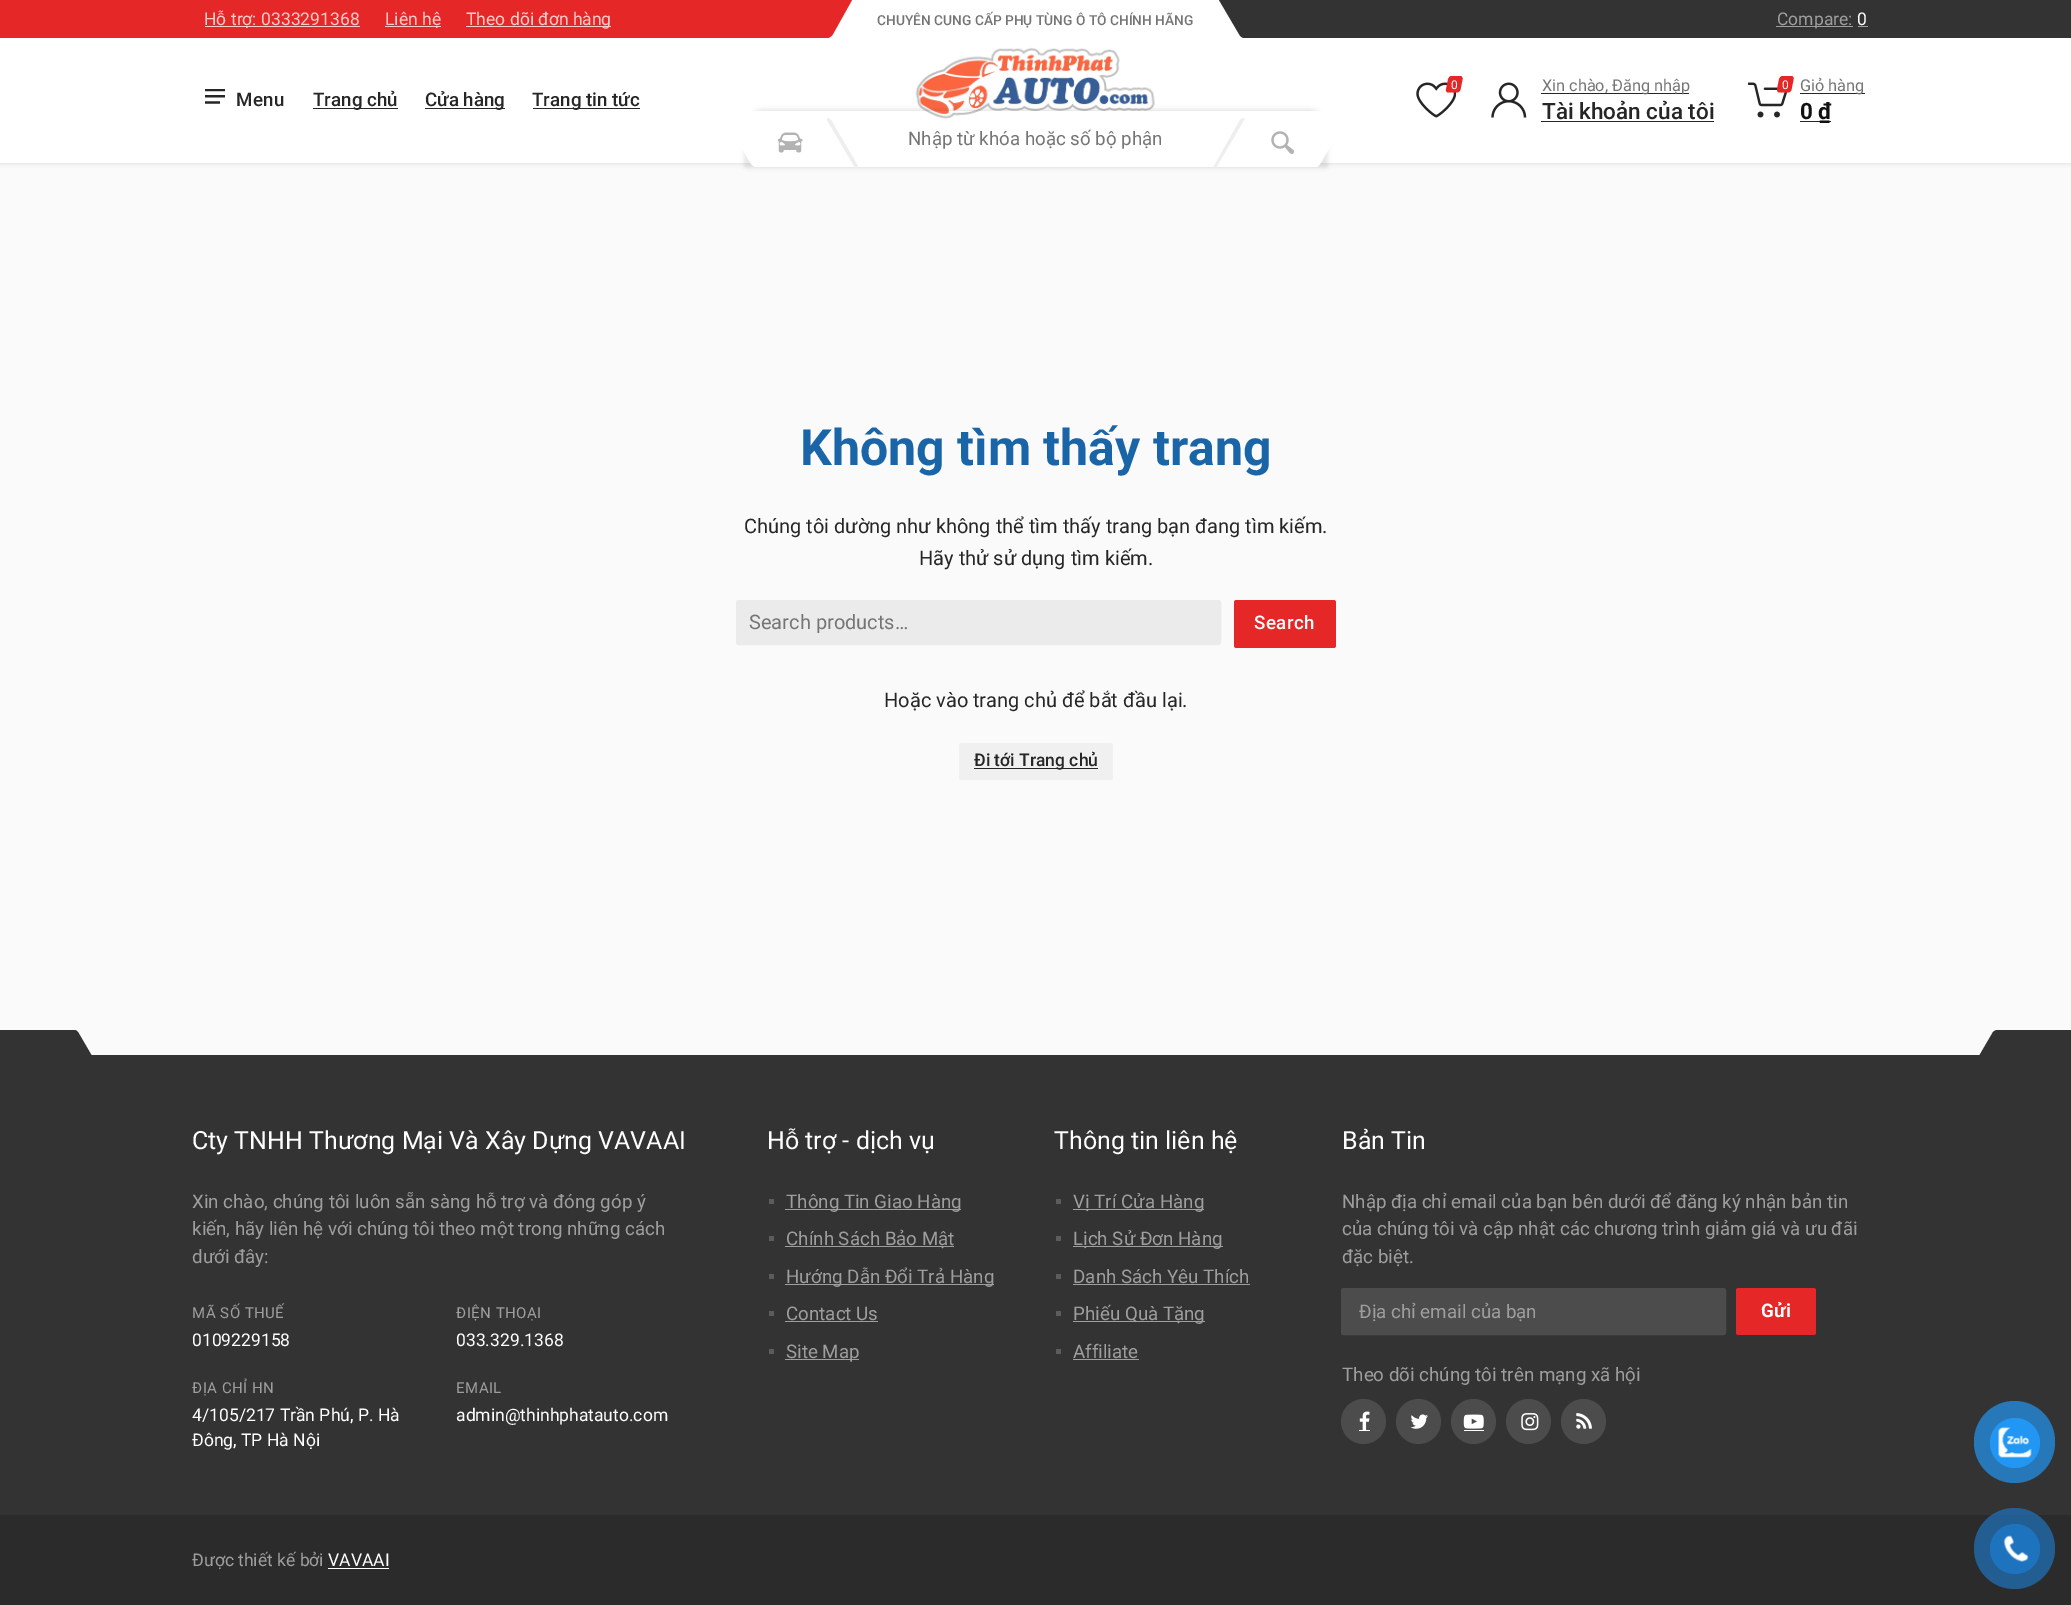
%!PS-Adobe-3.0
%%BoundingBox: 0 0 2071 1605
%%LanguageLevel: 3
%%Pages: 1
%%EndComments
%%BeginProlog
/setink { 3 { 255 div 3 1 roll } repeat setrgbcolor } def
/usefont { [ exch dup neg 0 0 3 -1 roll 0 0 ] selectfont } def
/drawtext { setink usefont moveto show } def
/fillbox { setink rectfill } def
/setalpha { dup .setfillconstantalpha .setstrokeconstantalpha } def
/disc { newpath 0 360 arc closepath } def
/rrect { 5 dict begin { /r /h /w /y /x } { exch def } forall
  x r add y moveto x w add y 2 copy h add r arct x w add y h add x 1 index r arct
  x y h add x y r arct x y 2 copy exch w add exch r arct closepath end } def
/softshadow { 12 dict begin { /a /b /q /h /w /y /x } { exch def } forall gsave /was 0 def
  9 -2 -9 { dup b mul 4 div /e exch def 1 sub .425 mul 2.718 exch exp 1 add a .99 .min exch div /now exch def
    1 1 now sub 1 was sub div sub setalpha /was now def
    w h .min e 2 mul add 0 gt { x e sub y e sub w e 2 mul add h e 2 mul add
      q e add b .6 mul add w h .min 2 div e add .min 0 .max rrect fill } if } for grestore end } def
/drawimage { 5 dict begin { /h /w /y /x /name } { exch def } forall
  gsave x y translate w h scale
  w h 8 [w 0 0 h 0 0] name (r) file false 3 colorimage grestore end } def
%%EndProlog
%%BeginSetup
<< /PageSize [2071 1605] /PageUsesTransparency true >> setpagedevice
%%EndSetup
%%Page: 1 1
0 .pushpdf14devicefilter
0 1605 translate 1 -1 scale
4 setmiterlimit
0 0 2071 1605 250 250 250 fillbox
0 0 0 setink
0 1 2071 163 0 2 0.09 softshadow
0 0 2071 163 255 255 255 fillbox
229 39 39 setink
0 0 moveto 852 0 lineto 833 34 lineto 832 36 829 38 828 38 curveto -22 38 lineto closepath fill
51 51 51 setink
1219 0 moveto 2071 0 lineto 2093 38 lineto 1244 38 lineto 1242 38 1240 36 1239 34 curveto closepath fill
205 26 155 1 255 204 204 fillbox
(Hỗ trợ: 0333291368) 204 25 /Roboto-Regular 17.5 255 204 204 drawtext
385 26 56 1 255 204 204 fillbox
(Liên hệ) 385 25 /Roboto-Regular 17.5 255 204 204 drawtext
466 26 145 1 255 204 204 fillbox
(Theo dõi đơn hàng) 466 25 /Roboto-Regular 17.5 255 204 204 drawtext
(CHUYÊN CUNG CẤP PHỤ TÙNG Ô TÔ CHÍNH HÃNG) 877 25 /Roboto-Medium 13.75 117 117 117 drawtext
(assets/img1.rgb) 915 47 240 72 drawimage
1776 26 77 1 158 158 158 fillbox
(Compare:) 1777 25 /Roboto-Regular 17.5 158 158 158 drawtext
(0) 1857 25 /Roboto-Regular 17.5 255 255 255 drawtext
1858 26 10 1 158 158 158 fillbox
(assets/img2.rgb) 205 89 20 15 drawimage
/Roboto-Medium 18.75 usefont
38 38 38 setink
236 106 moveto 0.5 0 (Menu) ashow
313 108 85 1 38 38 38 fillbox
(Trang chủ) 313 106 /Roboto-Medium 18.75 38 38 38 drawtext
425 108 80 1 38 38 38 fillbox
(Cửa hàng) 425 106 /Roboto-Medium 18.75 38 38 38 drawtext
533 108 107 1 38 38 38 fillbox
(Trang tin tức) 532 106 /Roboto-Medium 18.75 38 38 38 drawtext
(assets/img3.rgb) 1416 82 40 36 drawimage
229 39 39 setink
1451.5 76 moveto 1460 76 lineto 1461.5 76 1463 77.5 1462.5 79.5 curveto 1460.5 89.5 lineto 1460 91 1458.5 92.5 1457 92.5 curveto 1448.5 92.5 lineto 1447 92.5 1445.5 91 1446 89.5 curveto 1448 79.5 lineto 1448.5 77.5 1450 76 1451.5 76 curveto closepath fill
(0) 1451 89 /Roboto-Regular 12 255 255 255 drawtext
(assets/img4.rgb) 1491 82 36 36 drawimage
1541 93 148 1 38 38 38 fillbox
(Xin chào, Đăng nhập) 1542 91 /Roboto-Regular 16.25 117 117 117 drawtext
(Tài khoản của tôi) 1542 119 /Roboto-Medium 22.5 38 38 38 drawtext
1541 121 173 1 38 38 38 fillbox
(assets/img5.rgb) 1748 82 40 36 drawimage
229 39 39 setink
1783 76 moveto 1791 76 lineto 1793 76 1794 77.5 1793.5 79.5 curveto 1791.5 89.5 lineto 1791.5 91 1789.5 92.5 1788 92.5 curveto 1779.5 92.5 lineto 1778 92.5 1777 91 1777 89.5 curveto 1779 79.5 lineto 1779.5 77.5 1781 76 1783 76 curveto closepath fill
(0) 1782 89 /Roboto-Regular 12 255 255 255 drawtext
1800 93 65 1 38 38 38 fillbox
(Giỏ hàng) 1800 91 /Roboto-Regular 16.25 117 117 117 drawtext
1800 121 31 1 38 38 38 fillbox
(0 ₫) 1800 119 /Roboto-Bold 22.5 17 17 17 drawtext
gsave
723 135 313 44 rectclip
0 0 0 setink
744 136 314 32 2.5 2 0.09 softshadow
grestore
255 255 255 setink
734 135 moveto 1048 135 lineto 1066 167 lineto 755 167 lineto 752 165 lineto 751 164 lineto closepath fill
gsave
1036 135 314 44 rectclip
0 0 0 setink
1014 136 314 32 2.5 2 0.09 softshadow
grestore
gsave
1036 135 314 44 rectclip
1023 135 moveto 1337 135 lineto 1320 164 lineto 1319 165 1318 167 1316 167 curveto 1005 167 lineto closepath fill
grestore
gsave
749 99 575 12 rectclip
0 0 0 setink
749 110 575 75 13 2.5 0.12 softshadow
grestore
(assets/img6.rgb) 778 132 25 21 drawimage
238 238 238 setink
828 118 moveto 829 118 830 119 831 120 curveto 858 166 lineto 858 167 858 168 857 168 curveto 856 168 855 167 854 166 curveto 827 120 lineto 827 119 827 118 828 118 curveto closepath fill
1243 118 moveto 1244 118 1245 119 1244 120 curveto 1217 166 lineto 1217 167 1215 168 1214 168 curveto 1213 168 1213 167 1214 166 curveto 1240 120 lineto 1241 119 1242 118 1243 118 curveto closepath fill
(assets/img7.rgb) 1271 131 24 23 drawimage
(Nhập từ khóa hoặc số bộ phận) 908 145 /Roboto-Regular 18.75 117 117 117 drawtext
(Không tìm thấy trang) 800 465 /Roboto-Bold 50 25 101 168 drawtext
(Chúng tôi dường như không thể tìm thấy trang bạn đang tìm kiếm.) 744 533 /Roboto-Regular 20 38 38 38 drawtext
(Hãy thử sử dụng tìm kiếm.) 919 565 /Roboto-Regular 20 38 38 38 drawtext
235 235 235 setink
736.5 600.5 484 44 2 rrect gsave fill grestore
stroke
(Search products…) 749 629 /Roboto-Regular 20 117 117 117 drawtext
229 39 39 setink
1234 600 102 48 2.5 rrect fill
/Roboto-Medium 18.75 usefont
255 255 255 setink
1254 629 moveto 0.5 0 (Search) ashow
(Hoặc vào trang chủ để bắt đầu lại.) 884 707 /Roboto-Regular 20 38 38 38 drawtext
240 240 240 setink
959 743 154 37 2.5 rrect fill
974 768 124 1 38 38 38 fillbox
(Đi tới Trang chủ) 974 766 /Roboto-Medium 17.5 38 38 38 drawtext
0 1055 2071 460 51 51 51 fillbox
-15 1030 moveto 74 1030 lineto 76 1030 77 1031 78 1032 curveto 92 1056 lineto 0 1056 lineto closepath fill
1997 1030 moveto 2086 1030 lineto 2071 1056 lineto 1979 1056 lineto 1993 1032 lineto 1994 1031 1996 1030 1997 1030 curveto closepath fill
(Cty TNHH Thương Mại Và Xây Dựng VAVAAI) 192 1149 /Roboto-Regular 25 255 255 255 drawtext
(Xin chào, chúng tôi luôn sẵn sàng hỗ trợ và đóng góp ý) 192 1208 /Roboto-Regular 18.75 158 158 158 drawtext
(kiến, hãy liên hệ với chúng tôi theo một trong những cách) 192 1235 /Roboto-Regular 18.75 158 158 158 drawtext
(dưới đây:) 192 1263 /Roboto-Regular 18.75 158 158 158 drawtext
/Roboto-Regular 15 usefont
192 1318 moveto 0.5 0 (MÃ SỐ THUẾ) ashow
(0109229158) 192 1346 /Roboto-Regular 17.5 255 255 255 drawtext
/Roboto-Regular 15 usefont
158 158 158 setink
456 1318 moveto 0.5 0 (ĐIỆN THOẠI) ashow
(033.329.1368) 456 1346 /Roboto-Regular 17.5 255 255 255 drawtext
/Roboto-Regular 15 usefont
158 158 158 setink
192 1393 moveto 0.5 0 (ĐỊA CHỈ HN) ashow
(4/105/217 Trần Phú, P. Hà) 192 1421 /Roboto-Regular 17.5 255 255 255 drawtext
(Đông, TP Hà Nội) 192 1446 /Roboto-Regular 17.5 255 255 255 drawtext
/Roboto-Regular 15 usefont
158 158 158 setink
456 1393 moveto 0.5 0 (EMAIL) ashow
(admin@thinhphatauto.com) 456 1421 /Roboto-Regular 17.5 255 255 255 drawtext
(Hỗ trợ - dịch vụ) 767 1149 /Roboto-Regular 25 255 255 255 drawtext
769 1199 5 5 92 92 92 fillbox
785 1209 176 1 158 158 158 fillbox
(Thông Tin Giao Hàng) 786 1208 /Roboto-Regular 18.75 158 158 158 drawtext
769 1236 5 5 92 92 92 fillbox
785 1246 169 1 158 158 158 fillbox
(Chính Sách Bảo Mật) 786 1245 /Roboto-Regular 18.75 158 158 158 drawtext
769 1274 5 5 92 92 92 fillbox
785 1284 209 1 158 158 158 fillbox
(Hướng Dẫn Đổi Trả Hàng) 786 1283 /Roboto-Regular 18.75 158 158 158 drawtext
769 1311 5 5 92 92 92 fillbox
(Contact Us) 786 1320 /Roboto-Regular 18.75 158 158 158 drawtext
785 1321 93 1 158 158 158 fillbox
769 1349 5 5 92 92 92 fillbox
785 1359 74 1 158 158 158 fillbox
(Site Map) 786 1358 /Roboto-Regular 18.75 158 158 158 drawtext
(Thông tin liên hệ) 1054 1149 /Roboto-Regular 25 255 255 255 drawtext
1056 1199 5 5 92 92 92 fillbox
1073 1209 131 1 158 158 158 fillbox
(Vị Trí Cửa Hàng) 1073 1208 /Roboto-Regular 18.75 158 158 158 drawtext
1056 1236 5 5 92 92 92 fillbox
1073 1246 150 1 158 158 158 fillbox
(Lịch Sử Đơn Hàng) 1073 1245 /Roboto-Regular 18.75 158 158 158 drawtext
1056 1274 5 5 92 92 92 fillbox
(Danh Sách Yêu Thích) 1073 1283 /Roboto-Regular 18.75 158 158 158 drawtext
1073 1284 177 1 158 158 158 fillbox
1056 1311 5 5 92 92 92 fillbox
1073 1321 132 1 158 158 158 fillbox
(Phiếu Quà Tặng) 1073 1320 /Roboto-Regular 18.75 158 158 158 drawtext
1056 1349 5 5 92 92 92 fillbox
(Affiliate) 1073 1358 /Roboto-Regular 18.75 158 158 158 drawtext
1073 1359 66 1 158 158 158 fillbox
(Bản Tin) 1342 1149 /Roboto-Regular 25 255 255 255 drawtext
(Nhập địa chỉ email của bạn bên dưới để đăng ký nhận bản tin) 1342 1208 /Roboto-Regular 18.75 158 158 158 drawtext
(của chúng tôi và cập nhật các chương trình giảm giá và ưu đãi) 1342 1235 /Roboto-Regular 18.75 158 158 158 drawtext
(đặc biệt.) 1342 1263 /Roboto-Regular 18.75 158 158 158 drawtext
76 76 76 setink
1342.5 1289.5 382 44 1 rrect gsave fill grestore
3 setlinewidth
stroke
(Địa chỉ email của bạn) 1359 1318 /Roboto-Regular 18.75 158 158 158 drawtext
229 39 39 setink
1736 1288 80 47 2.5 rrect fill
/Roboto-Bold 18.75 usefont
255 255 255 setink
1761 1317 moveto 0.5 0 (Gửi) ashow
(Theo dõi chúng tôi trên mạng xã hội) 1342 1381 /Roboto-Regular 18.75 158 158 158 drawtext
76 76 76 setink
1363.5 1421.5 22.5 disc fill
(assets/img8.rgb) 1359 1411 11 19 drawimage
1359 1430 11 1 255 255 255 fillbox
76 76 76 setink
1418.5 1421.5 22.5 disc fill
(assets/img9.rgb) 1410 1414 18 15 drawimage
1473.5 1421.5 22.5 disc fill
(assets/img10.rgb) 1463 1414 21 15 drawimage
1464 1430 20 1 255 255 255 fillbox
76 76 76 setink
1528.5 1421.5 22.5 disc fill
(assets/img11.rgb) 1521 1413 18 18 drawimage
1583.5 1421.5 22.5 disc fill
(assets/img12.rgb) 1576 1413 16 16 drawimage
0 1515 2071 90 43 43 43 fillbox
(Được thiết kế bởi) 192 1566 /Roboto-Regular 17.5 158 158 158 drawtext
(VAVAAI) 328 1566 /Roboto-Regular 17.5 255 255 255 drawtext
328 1568 61 1 255 255 255 fillbox
38 120 185 setink
1974 1401 81 82 40.5 rrect fill
33 150 243 setink
2015 1443 25 disc fill
(assets/img13.rgb) 1998 1427 34 31 drawimage
0.7 setalpha
30 115 190 setink
2014.5 1548.5 40.5 disc fill
1 setalpha
2015 1549 25 disc fill
(assets/img14.rgb) 2003 1535 26 27 drawimage
.poppdf14devicefilter showpage
%%EOF
